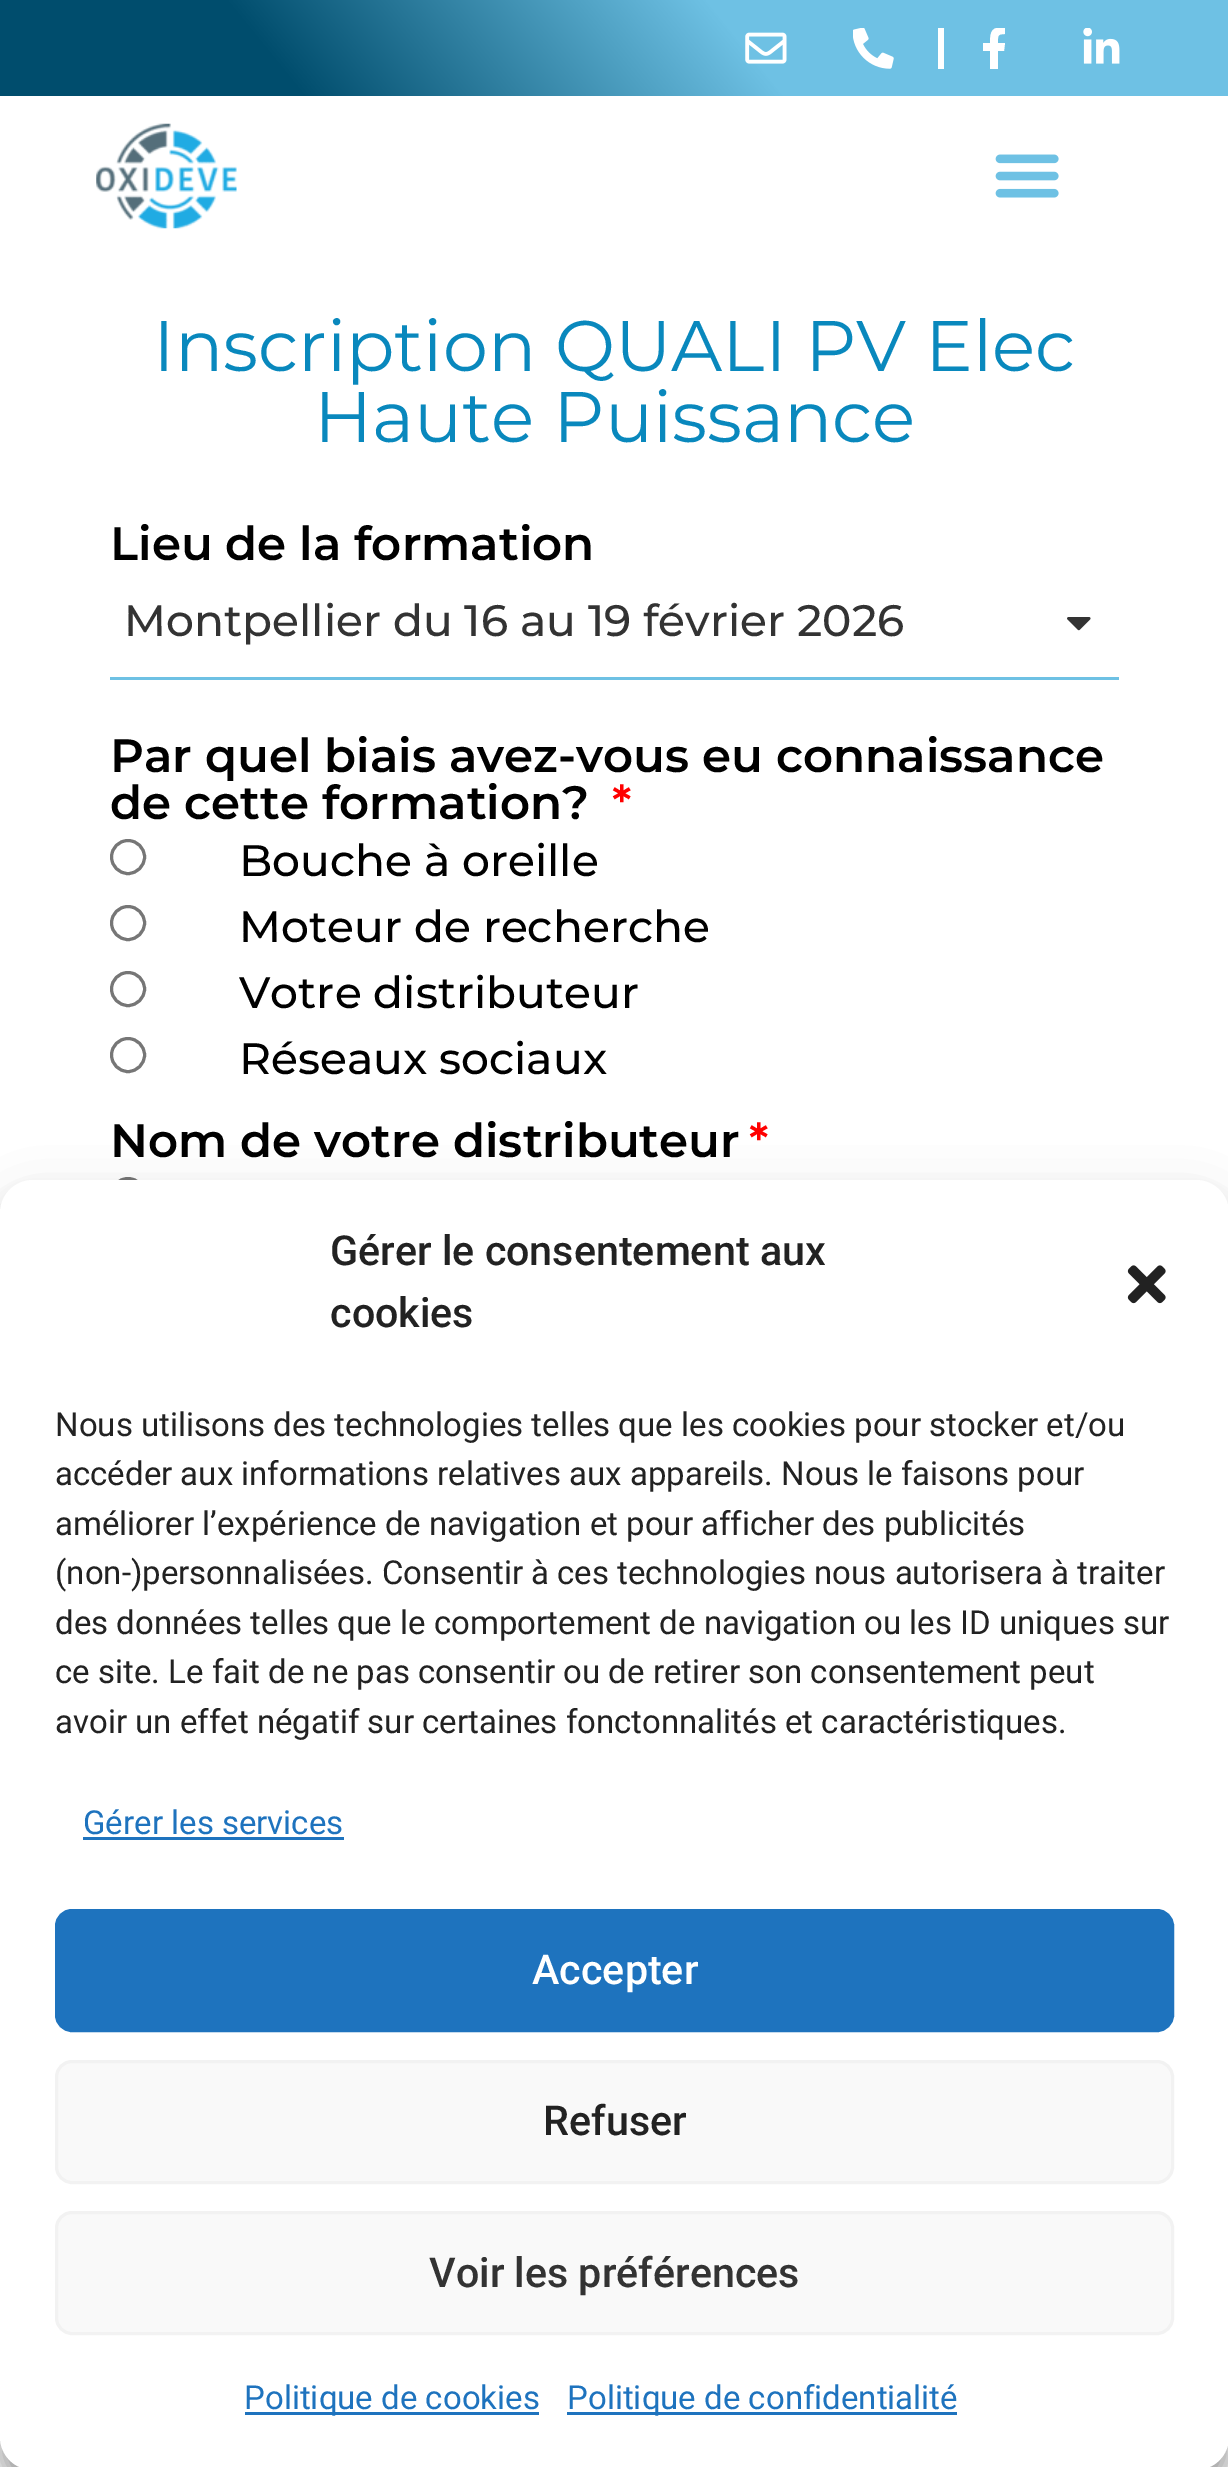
%!PS-Adobe-3.0
%%BoundingBox: 0 0 1228 2467
%%LanguageLevel: 3
%%Pages: 1
%%EndComments
%%BeginProlog
/setink { 3 { 255 div 3 1 roll } repeat setrgbcolor } def
/usefont { [ exch dup neg 0 0 3 -1 roll 0 0 ] selectfont } def
/drawtext { setink usefont moveto show } def
/fillbox { setink rectfill } def
/setalpha { dup .setfillconstantalpha .setstrokeconstantalpha } def
/disc { newpath 0 360 arc closepath } def
/rrect { 5 dict begin { /r /h /w /y /x } { exch def } forall
  x r add y moveto x w add y 2 copy h add r arct x w add y h add x 1 index r arct
  x y h add x y r arct x y 2 copy exch w add exch r arct closepath end } def
/softshadow { 12 dict begin { /a /b /q /h /w /y /x } { exch def } forall gsave /was 0 def
  9 -2 -9 { dup b mul 4 div /e exch def 1 sub .425 mul 2.718 exch exp 1 add a .99 .min exch div /now exch def
    1 1 now sub 1 was sub div sub setalpha /was now def
    w h .min e 2 mul add 0 gt { x e sub y e sub w e 2 mul add h e 2 mul add
      q e add b .6 mul add w h .min 2 div e add .min 0 .max rrect fill } if } for grestore end } def
/drawimage { 5 dict begin { /h /w /y /x /name } { exch def } forall
  gsave x y translate w h scale
  w h 8 [w 0 0 h 0 0] name (r) file false 3 colorimage grestore end } def
%%EndProlog
%%BeginSetup
<< /PageSize [1228 2467] /PageUsesTransparency true >> setpagedevice
%%EndSetup
%%Page: 1 1
0 .pushpdf14devicefilter
0 2467 translate 1 -1 scale
4 setmiterlimit
0 0 1228 2467 255 255 255 fillbox
gsave 0 0 moveto 1228 0 lineto 1228 96 lineto 0 96 lineto closepath clip newpath
<< /ShadingType 2 /ColorSpace /DeviceRGB /Coords [1009 -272 220 368] /Extend [true true] /Function << /FunctionType 3 /Domain [0 1] /Functions [<< /FunctionType 2 /Domain [0 1] /C0 [0.431 0.757 0.894] /C1 [0.431 0.757 0.894] /N 1 >> << /FunctionType 2 /Domain [0 1] /C0 [0.431 0.757 0.894] /C1 [0 0.302 0.427] /N 1 >> << /FunctionType 2 /Domain [0 1] /C0 [0 0.302 0.427] /C1 [0 0.302 0.427] /N 1 >>] /Bounds [0.4 0.77] /Encode [0 1 0 1 0 1] >> >> shfill grestore
(assets/img1.rgb) 745 32 42 32 drawimage
(assets/img2.rgb) 853 28 41 41 drawimage
938 28 6 41 255 255 255 fillbox
gsave
974 28 41 41 rectclip
1004 51 moveto 1005 43 lineto 998 43 lineto 998 36 997 34 1005 34 curveto 1005 28 lineto 992 26 990 31 990 43 curveto 983 43 lineto 983 51 lineto 990 51 lineto 990 69 lineto 998 69 lineto 998 51 lineto closepath fill
grestore
(assets/img3.rgb) 1083 28 37 36 drawimage
(assets/img4.rgb) 96 123 141 106 drawimage
(assets/img5.rgb) 995 154 64 44 drawimage
(Inscription QUALI PV Elec) 153 371 /Montserrat-Regular 71.5 9 136 189 drawtext
(Haute Puissance) 314 442 /Montserrat-Regular 71.5 9 136 189 drawtext
(Lieu de la formation) 110 560 /Montserrat-SemiBold 46.75 0 0 0 drawtext
110 677 1009 3 110 193 228 fillbox
(Montpellier du 16 au 19 février 2026) 124 636 /Montserrat-Medium 44 51 51 51 drawtext
(assets/img6.rgb) 1067 617 24 14 drawimage
(Par quel biais avez-vous eu connaissance) 110 772 /Montserrat-SemiBold 46.75 0 0 0 drawtext
(de cette formation?) 110 819 /Montserrat-SemiBold 46.75 0 0 0 drawtext
(*) 612 819 /Montserrat-SemiBold 46.75 255 0 0 drawtext
118 118 118 setink
3 setlinewidth
128 857 16.5 disc stroke
(Bouche à oreille) 239 876 /Montserrat-Medium 44 0 0 0 drawtext
118 118 118 setink
128 923 16.5 disc stroke
(Moteur de recherche) 239 942 /Montserrat-Medium 44 0 0 0 drawtext
118 118 118 setink
128 989 16.5 disc stroke
(Votre distributeur) 239 1008 /Montserrat-Medium 44 0 0 0 drawtext
118 118 118 setink
128 1055 16.5 disc stroke
(Réseaux sociaux) 239 1074 /Montserrat-Medium 44 0 0 0 drawtext
(Nom de votre distributeur) 110 1157 /Montserrat-SemiBold 46.75 0 0 0 drawtext
(*) 749 1157 /Montserrat-SemiBold 46.75 255 0 0 drawtext
118 118 118 setink
128 1195 16.5 disc stroke
0 0 0 setink
0 1196 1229 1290 33 8 0.23 softshadow
0 1207 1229 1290 33 27.5 0.19 softshadow
255 255 255 setink
0 1180 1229 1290 33 rrect fill
(Gérer le consentement aux) 330 1265 /Roboto-Medium 41.25 34 34 34 drawtext
(cookies) 330 1327 /Roboto-Medium 41.25 34 34 34 drawtext
(assets/img7.rgb) 1127 1265 39 39 drawimage
(Nous utilisons des technologies telles que les cookies pour stocker et/ou) 55 1436 /Roboto-Regular 33 34 34 34 drawtext
(accéder aux informations relatives aux appareils. Nous le faisons pour) 55 1485 /Roboto-Regular 33 34 34 34 drawtext
(améliorer l’expérience de navigation et pour afficher des publicités) 55 1535 /Roboto-Regular 33 34 34 34 drawtext
(\(non-\)personnalisées. Consentir à ces technologies nous autorisera à traiter) 55 1584 /Roboto-Regular 33 34 34 34 drawtext
(des données telles que le comportement de navigation ou les ID uniques sur) 55 1634 /Roboto-Regular 33 34 34 34 drawtext
(ce site. Le fait de ne pas consentir ou de retirer son consentement peut) 55 1683 /Roboto-Regular 33 34 34 34 drawtext
(avoir un effet négatif sur certaines fonctonnalités et caractéristiques.) 55 1733 /Roboto-Regular 33 34 34 34 drawtext
(Gérer les services) 83 1834 /Roboto-Regular 33 30 115 190 drawtext
83 1837 261 3 30 115 190 fillbox
56.5 1910.5 1116 120 15.5 rrect gsave fill grestore
stroke
(Accepter) 532 1984 /Roboto-Medium 41.25 255 255 255 drawtext
249 249 249 setink
56.5 2061.5 1116 121 15.5 rrect gsave fill grestore
242 242 242 setink
stroke
(Refuser) 543 2135 /Roboto-Medium 41.25 34 34 34 drawtext
249 249 249 setink
56.5 2212.5 1116 121 15.5 rrect gsave fill grestore
242 242 242 setink
stroke
(Voir les préférences) 429 2287 /Roboto-Medium 41.25 51 51 51 drawtext
245 2412 294 3 30 115 190 fillbox
(Politique de cookies) 244 2409 /Roboto-Regular 33 30 115 190 drawtext
567 2412 390 3 30 115 190 fillbox
(Politique de confidentialité) 567 2409 /Roboto-Regular 33 30 115 190 drawtext
.poppdf14devicefilter showpage
%%EOF
